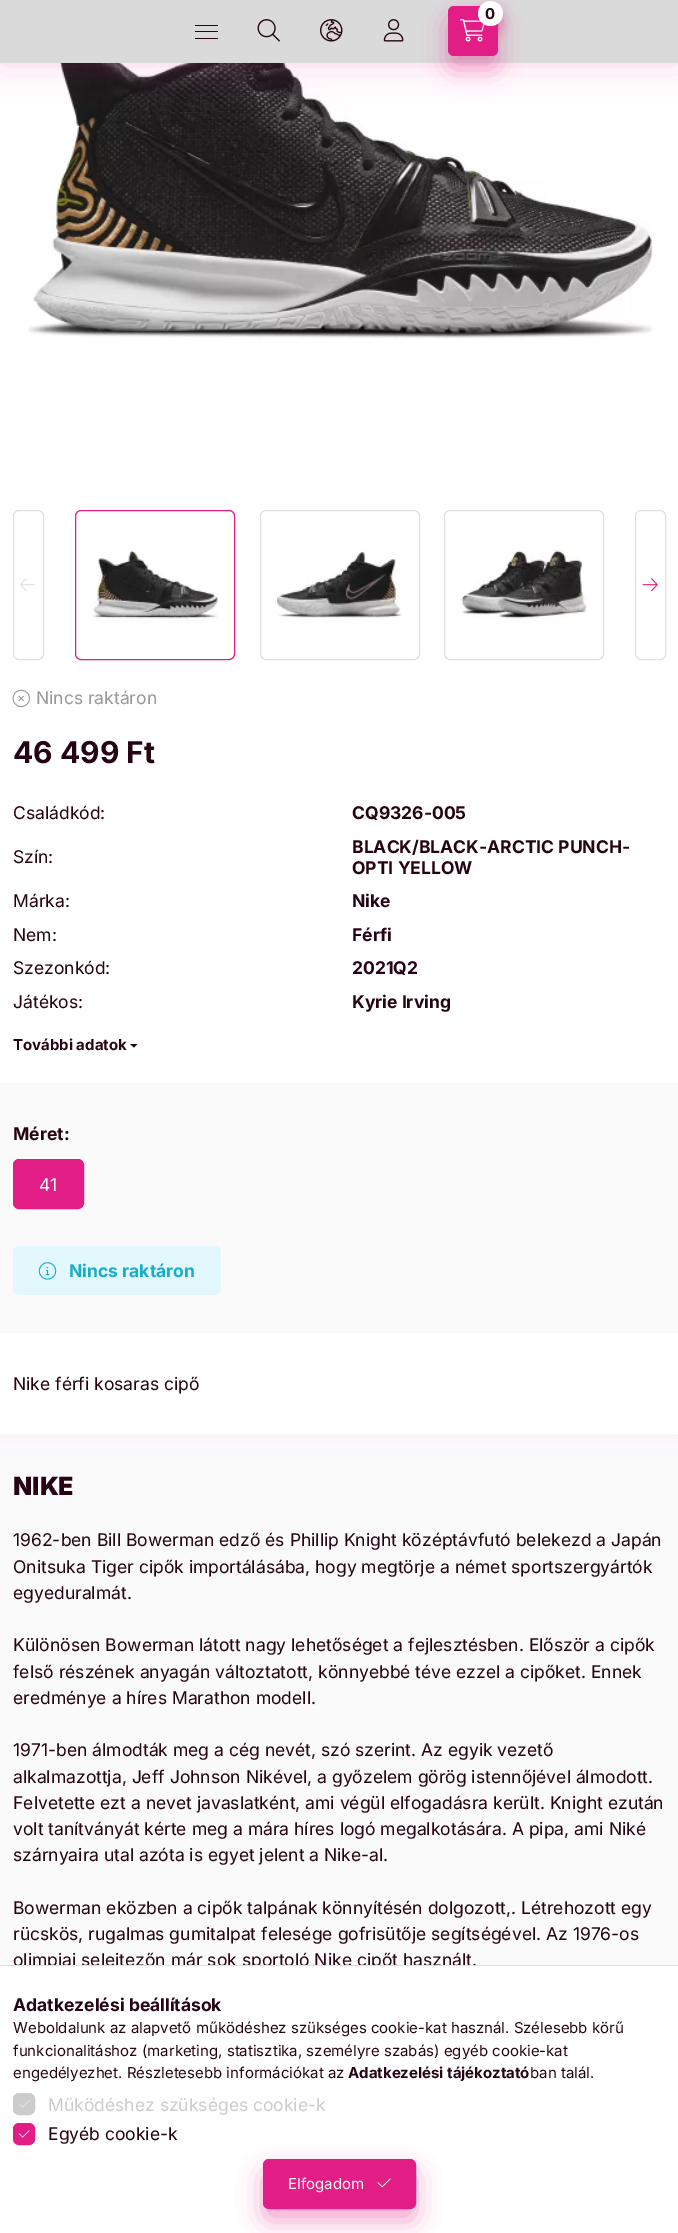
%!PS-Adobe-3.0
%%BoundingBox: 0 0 678 2233
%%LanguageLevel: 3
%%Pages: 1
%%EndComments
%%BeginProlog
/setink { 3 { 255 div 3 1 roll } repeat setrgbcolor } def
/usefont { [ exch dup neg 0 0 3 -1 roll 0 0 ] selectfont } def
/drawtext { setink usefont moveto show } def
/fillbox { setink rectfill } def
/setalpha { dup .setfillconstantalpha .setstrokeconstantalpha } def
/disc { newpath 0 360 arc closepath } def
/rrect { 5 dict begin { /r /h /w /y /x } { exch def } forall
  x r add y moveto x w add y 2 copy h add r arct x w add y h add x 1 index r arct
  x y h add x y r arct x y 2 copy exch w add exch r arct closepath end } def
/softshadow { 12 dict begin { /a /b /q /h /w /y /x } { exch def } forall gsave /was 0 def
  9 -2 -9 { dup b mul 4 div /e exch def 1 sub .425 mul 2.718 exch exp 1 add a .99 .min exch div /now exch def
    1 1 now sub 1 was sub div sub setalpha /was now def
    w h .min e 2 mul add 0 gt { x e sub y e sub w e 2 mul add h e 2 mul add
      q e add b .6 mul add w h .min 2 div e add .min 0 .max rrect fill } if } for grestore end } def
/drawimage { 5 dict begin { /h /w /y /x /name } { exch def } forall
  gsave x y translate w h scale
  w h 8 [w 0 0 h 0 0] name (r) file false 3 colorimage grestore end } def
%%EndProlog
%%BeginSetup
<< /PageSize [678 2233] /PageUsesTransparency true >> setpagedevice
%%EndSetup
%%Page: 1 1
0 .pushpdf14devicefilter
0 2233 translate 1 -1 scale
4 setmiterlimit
0 0 678 2233 250 250 250 fillbox
227 29 134 setink
0 -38 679 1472 0 12.5 0.05 softshadow
0 63 678 1371 255 255 255 fillbox
(assets/img5.rgb) 28 63 625 276 drawimage
227 29 134 setink
0 0 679 63 0 19 0.2 softshadow
0 0 678 63 218 218 218 fillbox
227 29 134 setink
448 19 50 50 6 12.5 0.4 softshadow
448 6 50 50 6 rrect fill
(assets/img1.rgb) 460 19 25 23 drawimage
478 8 25 25 12.5 6 0.4 softshadow
255 255 255 setink
490.5 13.5 12.5 disc fill
(0) 485 19 /Inter-Bold 15 38 4 19 drawtext
195 25 23 1 38 4 19 fillbox
195 31 23 1 38 4 19 fillbox
195 38 23 1 38 4 19 fillbox
(assets/img2.rgb) 257 19 23 23 drawimage
(assets/img3.rgb) 320 19 23 23 drawimage
(assets/img4.rgb) 383 19 21 23 drawimage
225 225 225 setink
13.5 510.5 30 149 5.5 rrect stroke
(assets/img6.rgb) 20 578 16 13 drawimage
227 29 134 setink
75.5 510.5 159 149 5.5 rrect stroke
(assets/img7.rgb) 92 547 126 75 drawimage
225 225 225 setink
260.5 510.5 159 149 5.5 rrect stroke
(assets/img8.rgb) 277 551 125 67 drawimage
444.5 510.5 159 149 5.5 rrect stroke
(assets/img9.rgb) 461 548 126 71 drawimage
635.5 510.5 30 149 5.5 rrect stroke
(assets/img10.rgb) 642 578 16 14 drawimage
(assets/img11.rgb) 12 689 18 19 drawimage
(Nincs raktáron) 36 704 /Inter-Regular 17.5 153 153 153 drawtext
(46 499 Ft) 13 763 /Inter-Bold 30 38 4 19 drawtext
(Családkód:) 13 819 /Inter-Regular 17.5 38 4 19 drawtext
(CQ9326-005) 352 819 /Inter-Bold 17.5 38 4 19 drawtext
(Szín:) 13 863 /Inter-Regular 17.5 38 4 19 drawtext
(BLACK/BLACK-ARCTIC PUNCH-) 352 853 /Inter-Bold 17.5 38 4 19 drawtext
(OPTI YELLOW) 352 874 /Inter-Bold 17.5 38 4 19 drawtext
(Márka:) 13 907 /Inter-Regular 17.5 38 4 19 drawtext
(Nike) 352 907 /Inter-Bold 17.5 38 4 19 drawtext
(Nem:) 13 941 /Inter-Regular 17.5 38 4 19 drawtext
(Férfi) 352 941 /Inter-Bold 17.5 38 4 19 drawtext
(Szezonkód:) 13 974 /Inter-Regular 17.5 38 4 19 drawtext
(2021Q2) 352 974 /Inter-Bold 17.5 38 4 19 drawtext
(Játékos:) 13 1008 /Inter-Regular 17.5 38 4 19 drawtext
(Kyrie Irving) 352 1008 /Inter-Bold 17.5 38 4 19 drawtext
(További adatok) 13 1050 /Inter-Bold 15 38 4 19 drawtext
130 1044 moveto 137.5 1044 lineto 134 1047.5 lineto closepath fill
0 1083 678 250 250 250 250 fillbox
(Méret:) 13 1140 /Inter-Bold 17.5 38 4 19 drawtext
227 29 134 setink
13.5 1159.5 70 49 5.5 rrect gsave fill grestore
stroke
(41) 39 1191 /Inter-Regular 17.5 255 255 255 drawtext
227 248 252 setink
13 1246 208 49 6 rrect fill
(assets/img12.rgb) 38 1262 19 18 drawimage
(Nincs raktáron) 69 1277 /Inter-Bold 17.5 22 173 202 drawtext
(Nike férfi kosaras cipő) 13 1390 /Inter-Regular 17.5 38 4 19 drawtext
(NIKE) 13 1495 /Inter-Black 25 38 4 19 drawtext
(1962-ben Bill Bowerman edző és Phillip Knight középtávfutó belekezd a Japán) 13 1546 /Inter-Regular 17.5 38 4 19 drawtext
(Onitsuka Tiger cipők importálásába, hogy megtörje a német sportszergyártók) 13 1573 /Inter-Regular 17.5 38 4 19 drawtext
(egyeduralmát.) 13 1599 /Inter-Regular 17.5 38 4 19 drawtext
(Különösen Bowerman látott nagy lehetőséget a fejlesztésben. Először a cipők) 13 1651 /Inter-Regular 17.5 38 4 19 drawtext
(felső részének anyagán változtatott, könnyebbé téve ezzel a cipőket. Ennek) 13 1678 /Inter-Regular 17.5 38 4 19 drawtext
(eredménye a híres Marathon modell.) 13 1704 /Inter-Regular 17.5 38 4 19 drawtext
(1971-ben álmodták meg a cég nevét, szó szerint. Az egyik vezető) 13 1756 /Inter-Regular 17.5 38 4 19 drawtext
(alkalmazottja, Jeff Johnson Nikével, a győzelem görög istennőjével álmodott.) 13 1783 /Inter-Regular 17.5 38 4 19 drawtext
(Felvetette ezt a nevet javaslatként, ami végül elfogadásra került. Knight ezután) 13 1809 /Inter-Regular 17.5 38 4 19 drawtext
(volt tanítványát kérte meg a mára híres logó megalkotására. A pipa, ami Niké) 13 1835 /Inter-Regular 17.5 38 4 19 drawtext
(szárnyaira utal azóta is egyet jelent a Nike-al.) 13 1861 /Inter-Regular 17.5 38 4 19 drawtext
(Bowerman eközben a cipők talpának könnyítésén dolgozott,. Létrehozott egy) 13 1914 /Inter-Regular 17.5 38 4 19 drawtext
(rücskös, rugalmas gumitalpat felesége gofrisütője segítségével. Az 1976-os) 13 1940 /Inter-Regular 17.5 38 4 19 drawtext
(olimpiai selejtezőn már sok sportoló Nike cipőt használt.) 13 1966 /Inter-Regular 17.5 38 4 19 drawtext
0 1966 678 267 255 255 255 fillbox
0 1965 678 1 225 225 225 fillbox
(Adatkezelési beállítások) 13 2011 /Inter-Bold 17.5 38 4 19 drawtext
(Weboldalunk az alapvető működéshez szükséges cookie-kat használ. Szélesebb körű) 13 2033 /Inter-Regular 15 38 4 19 drawtext
(funkcionalitáshoz \(marketing, statisztika, személyre szabás\) egyéb cookie-kat) 13 2056 /Inter-Regular 15 38 4 19 drawtext
(engedélyezhet. Részletesebb információkat az) 13 2078 /Inter-Regular 15 38 4 19 drawtext
(Adatkezelési tájékoztató) 348 2078 /Inter-Bold 15 38 4 19 drawtext
(ban talál.) 530 2078 /Inter-Regular 15 38 4 19 drawtext
204 204 204 setink
13.5 2093.5 21 21 5.5 rrect gsave fill grestore
stroke
(assets/img13.rgb) 19 2100 11 8 drawimage
(Működéshez szükséges cookie-k) 48 2111 /Inter-Regular 17.5 204 204 204 drawtext
227 29 134 setink
13.5 2123.5 21 21 5.5 rrect gsave fill grestore
stroke
(assets/img14.rgb) 18 2130 12 8 drawimage
(Egyéb cookie-k) 48 2140 /Inter-Regular 17.5 38 4 19 drawtext
227 29 134 setink
263 2171 153 50 6 12.5 0.4 softshadow
263.5 2159.5 152 49 5.5 rrect gsave fill grestore
stroke
(Elfogadom) 288 2189 /Inter-Regular 15 255 255 255 drawtext
(assets/img15.rgb) 377 2178 14 10 drawimage
.poppdf14devicefilter showpage
%%EOF
